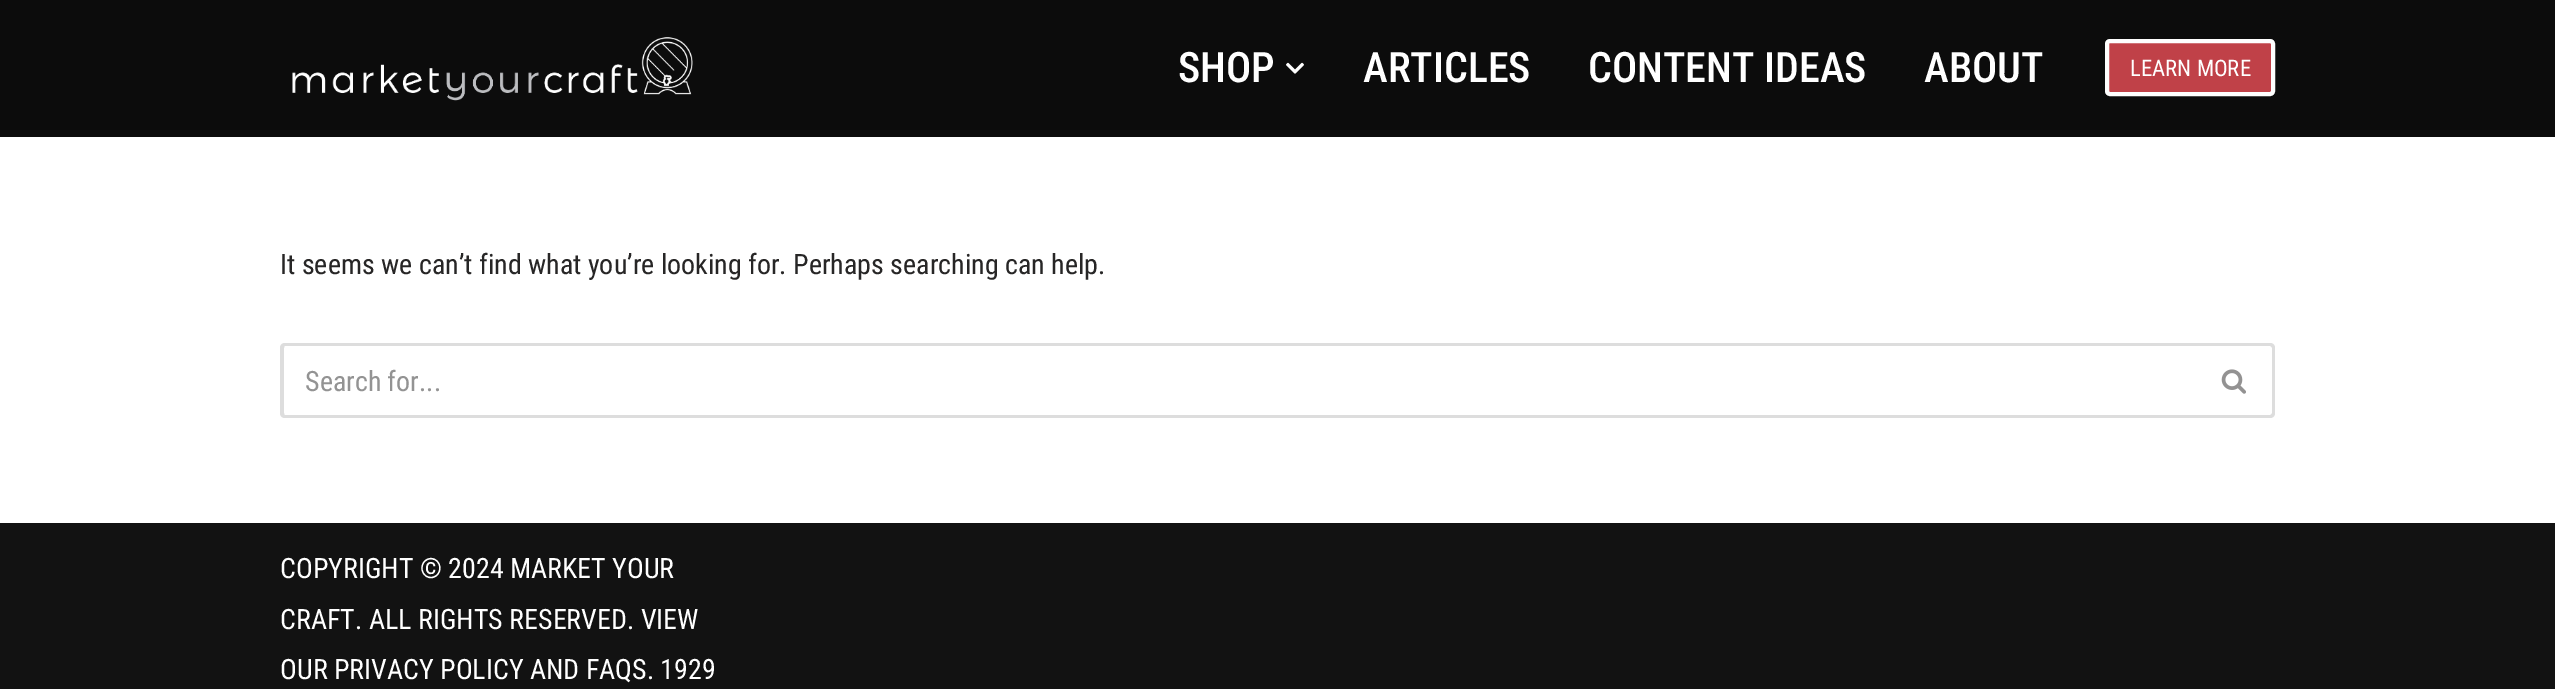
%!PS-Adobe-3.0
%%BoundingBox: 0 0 2555 689
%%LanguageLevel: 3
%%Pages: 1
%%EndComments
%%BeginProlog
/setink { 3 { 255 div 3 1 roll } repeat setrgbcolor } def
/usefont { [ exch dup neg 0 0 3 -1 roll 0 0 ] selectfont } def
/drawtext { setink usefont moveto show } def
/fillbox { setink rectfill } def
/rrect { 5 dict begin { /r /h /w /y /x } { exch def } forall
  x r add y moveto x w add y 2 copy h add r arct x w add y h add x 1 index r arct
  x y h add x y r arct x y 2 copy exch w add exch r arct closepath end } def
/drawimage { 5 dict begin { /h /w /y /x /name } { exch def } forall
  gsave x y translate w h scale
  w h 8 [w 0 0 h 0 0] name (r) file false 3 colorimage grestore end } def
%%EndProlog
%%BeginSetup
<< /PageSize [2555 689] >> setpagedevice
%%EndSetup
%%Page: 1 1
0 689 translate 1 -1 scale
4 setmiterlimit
0 0 2555 689 255 255 255 fillbox
0 0 2555 137 12 12 12 fillbox
(assets/img1.rgb) 292 37 401 64 drawimage
(SHOP) 1178 82 /RobotoCondensed-Medium 42 255 255 255 drawtext
(assets/img2.rgb) 1286 62 18 12 drawimage
(ARTICLES) 1363 82 /RobotoCondensed-Medium 42 255 255 255 drawtext
(CONTENT IDEAS) 1588 82 /RobotoCondensed-Medium 42 255 255 255 drawtext
(ABOUT) 1924 82 /RobotoCondensed-Medium 42 255 255 255 drawtext
192 65 72 setink
2107 41 166 53 3 rrect gsave fill grestore
254 254 254 setink
4 setlinewidth
stroke
(LEARN MORE) 2130 76 /RobotoCondensed-Regular 22.75 255 255 255 drawtext
(It seems we can’t find what you’re looking for. Perhaps searching can help.) 280 274 /RobotoCondensed-Regular 28 39 38 38 drawtext
221 221 221 setink
285 343 moveto 2196 343 lineto 2196 418 lineto 285 418 lineto 282 418 280 416 280 413 curveto 280 348 lineto 280 345 282 343 285 343 curveto closepath 285 346 moveto 2196 346 lineto 2196 415 lineto 285 415 lineto 284 415 284 414 284 413 curveto 284 348 lineto 284 347 284 346 285 346 curveto closepath eofill
(Search for...) 305 391 /RobotoCondensed-Regular 28 147 147 147 drawtext
221 221 221 setink
2196 343 moveto 2270 343 lineto 2273 343 2275 345 2275 348 curveto 2275 413 lineto 2275 416 2273 418 2270 418 curveto 2196 418 lineto closepath 2196 346 moveto 2270 346 lineto 2271 346 2272 347 2272 348 curveto 2272 413 lineto 2272 414 2271 415 2270 415 curveto 2196 415 lineto closepath eofill
(assets/img3.rgb) 2221 369 25 25 drawimage
0 523 2555 166 18 18 18 fillbox
(COPYRIGHT © 2024 MARKET YOUR) 280 578 /RobotoCondensed-Regular 28 255 255 255 drawtext
(CRAFT. ALL RIGHTS RESERVED. VIEW) 280 629 /RobotoCondensed-Regular 28 255 255 255 drawtext
(OUR PRIVACY POLICY AND FAQS. 1929) 280 679 /RobotoCondensed-Regular 28 255 255 255 drawtext
showpage
%%EOF
